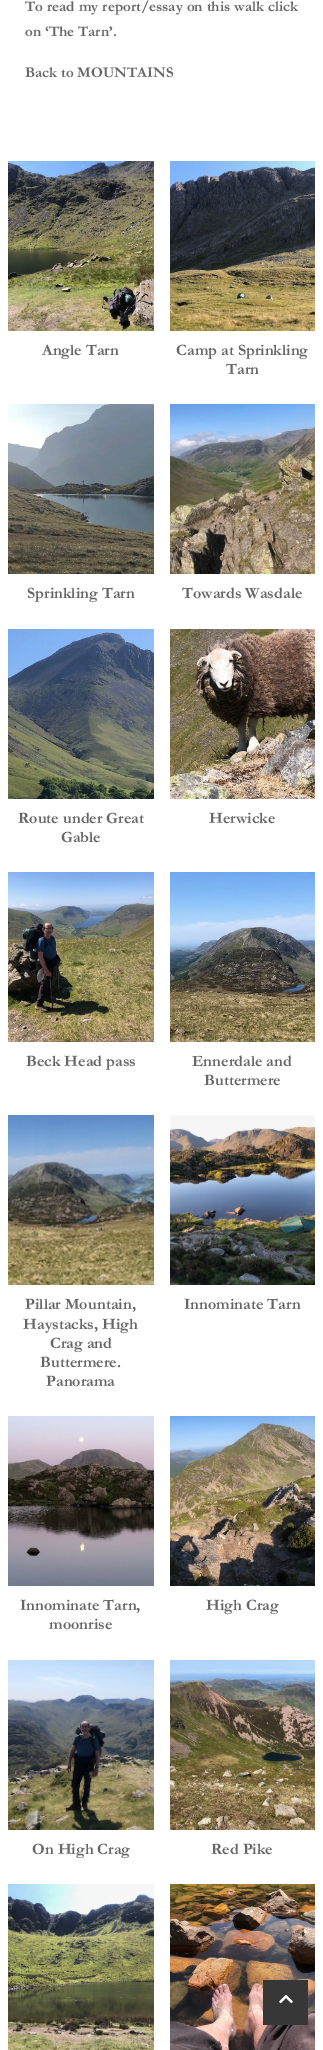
%!PS-Adobe-3.0
%%BoundingBox: 0 0 323 2050
%%LanguageLevel: 3
%%Pages: 1
%%EndComments
%%BeginProlog
/setink { 3 { 255 div 3 1 roll } repeat setrgbcolor } def
/usefont { [ exch dup neg 0 0 3 -1 roll 0 0 ] selectfont } def
/drawtext { setink usefont moveto show } def
/fillbox { setink rectfill } def
/drawimage { 5 dict begin { /h /w /y /x /name } { exch def } forall
  gsave x y translate w h scale
  w h 8 [w 0 0 h 0 0] name (r) file false 3 colorimage grestore end } def
%%EndProlog
%%BeginSetup
<< /PageSize [323 2050] >> setpagedevice
%%EndSetup
%%Page: 1 1
0 2050 translate 1 -1 scale
4 setmiterlimit
0 0 323 2050 255 255 255 fillbox
/Garamond-Bold 15 usefont
102 102 102 setink
25 11 moveto 0.25 0 32 (To read my report/essay on this walk click) widthshow
(on ‘The Tarn’.) 25 36 /Garamond-Bold 15 102 102 102 drawtext
(Back to MOUNTAINS) 25 77 /Garamond-Bold 15 102 102 102 drawtext
(assets/img1.rgb) 8 161 146 170 drawimage
(Angle Tarn) 42 355 /Garamond-Bold 16 102 102 102 drawtext
(assets/img2.rgb) 170 161 145 170 drawimage
(Camp at Sprinkling) 176 355 /Garamond-Bold 16 102 102 102 drawtext
(Tarn) 226 374 /Garamond-Bold 16 102 102 102 drawtext
(assets/img3.rgb) 8 404 146 170 drawimage
(Sprinkling Tarn) 27 598 /Garamond-Bold 16 102 102 102 drawtext
(assets/img4.rgb) 170 404 145 170 drawimage
(Towards Wasdale) 182 598 /Garamond-Bold 16 102 102 102 drawtext
(assets/img5.rgb) 8 629 146 170 drawimage
(Route under Great) 18 823 /Garamond-Bold 16 102 102 102 drawtext
(Gable) 61 842 /Garamond-Bold 16 102 102 102 drawtext
(assets/img6.rgb) 170 629 145 170 drawimage
(Herwicke) 209 823 /Garamond-Bold 16 102 102 102 drawtext
(assets/img7.rgb) 8 872 146 170 drawimage
(Beck Head pass) 26 1066 /Garamond-Bold 16 102 102 102 drawtext
(assets/img8.rgb) 170 872 145 170 drawimage
(Ennerdale and) 192 1066 /Garamond-Bold 16 102 102 102 drawtext
(Buttermere) 204 1085 /Garamond-Bold 16 102 102 102 drawtext
(assets/img9.rgb) 8 1115 146 170 drawimage
(Pillar Mountain,) 25 1309 /Garamond-Bold 16 102 102 102 drawtext
(Haystacks, High) 23 1329 /Garamond-Bold 16 102 102 102 drawtext
(Crag and) 50 1348 /Garamond-Bold 16 102 102 102 drawtext
(Buttermere.) 40 1367 /Garamond-Bold 16 102 102 102 drawtext
(Panorama) 46 1386 /Garamond-Bold 16 102 102 102 drawtext
(assets/img10.rgb) 170 1115 145 170 drawimage
(Innominate Tarn) 184 1309 /Garamond-Bold 16 102 102 102 drawtext
(assets/img11.rgb) 8 1416 146 170 drawimage
(Innominate Tarn,) 20 1610 /Garamond-Bold 16 102 102 102 drawtext
(moonrise) 49 1629 /Garamond-Bold 16 102 102 102 drawtext
(assets/img12.rgb) 170 1416 145 170 drawimage
(High Crag) 206 1610 /Garamond-Bold 16 102 102 102 drawtext
(assets/img13.rgb) 8 1660 146 170 drawimage
(On High Crag) 32 1854 /Garamond-Bold 16 102 102 102 drawtext
(assets/img14.rgb) 170 1660 145 170 drawimage
(Red Pike) 211 1854 /Garamond-Bold 16 102 102 102 drawtext
(assets/img15.rgb) 8 1884 146 166 drawimage
(assets/img16.rgb) 170 1884 145 166 drawimage
263 1980 45 45 55 55 55 fillbox
(assets/img17.rgb) 279 1994 14 10 drawimage
showpage
%%EOF
